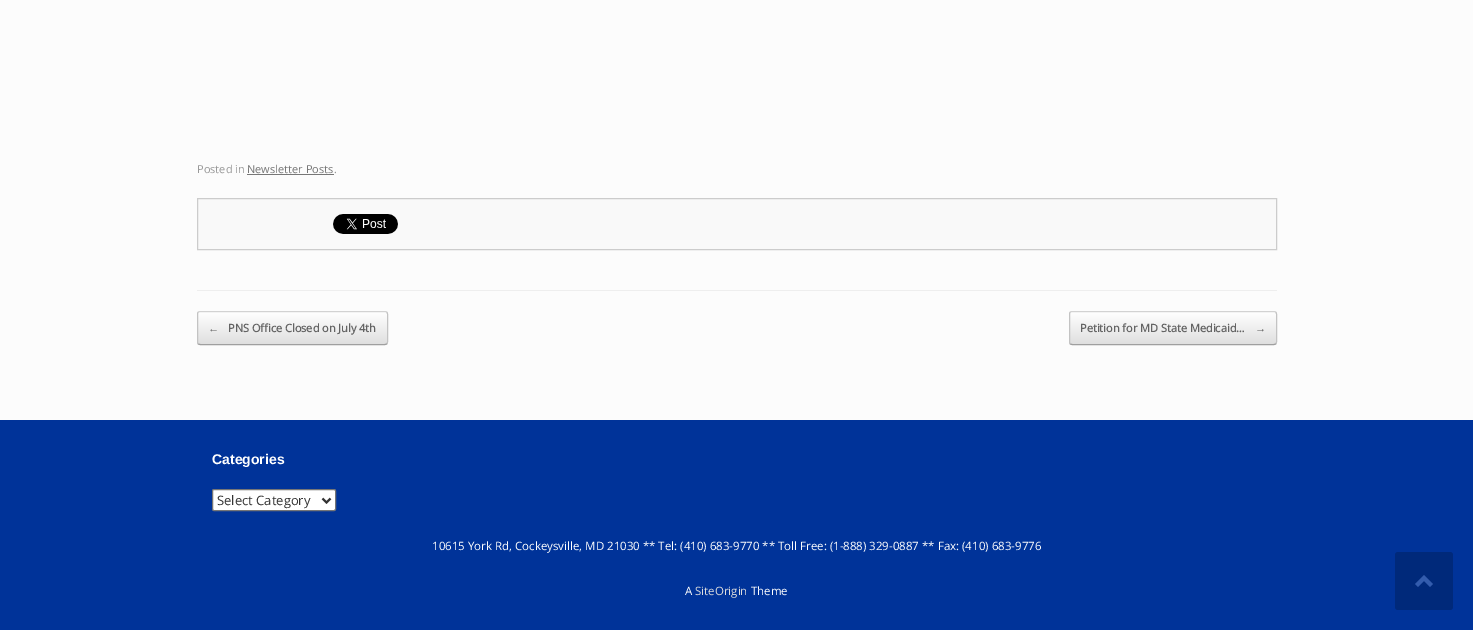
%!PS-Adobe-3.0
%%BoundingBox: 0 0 1473 630
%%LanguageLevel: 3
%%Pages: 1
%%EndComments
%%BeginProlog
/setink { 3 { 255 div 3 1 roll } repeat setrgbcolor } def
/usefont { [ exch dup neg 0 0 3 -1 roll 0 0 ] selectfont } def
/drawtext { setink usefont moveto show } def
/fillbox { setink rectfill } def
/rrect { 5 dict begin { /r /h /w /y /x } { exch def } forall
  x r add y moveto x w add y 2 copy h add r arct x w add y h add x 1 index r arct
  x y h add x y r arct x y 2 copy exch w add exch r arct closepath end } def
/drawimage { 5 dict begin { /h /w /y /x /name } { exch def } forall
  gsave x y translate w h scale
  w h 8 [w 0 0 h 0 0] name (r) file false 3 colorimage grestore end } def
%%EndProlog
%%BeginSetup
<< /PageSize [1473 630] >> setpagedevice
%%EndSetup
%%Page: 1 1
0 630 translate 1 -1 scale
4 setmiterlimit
0 0 1473 630 0 51 153 fillbox
0 0 1473 420 252 252 252 fillbox
197 290 1080 1 238 238 238 fillbox
(Posted in) 197 173 /OpenSans-Regular 11 153 153 153 drawtext
(Newsletter Posts) 247 173 /OpenSans-Regular 11 119 119 119 drawtext
247 174 87 1 119 119 119 fillbox
(.) 334 173 /OpenSans-Regular 11 153 153 153 drawtext
249 249 249 setink
197.5 198.5 moveto 1276.5 198.5 lineto 1276.5 249.5 lineto 197.5 249.5 lineto closepath gsave fill grestore
204 204 204 setink
stroke
(assets/img1.rgb) 333 214 65 20 drawimage
gsave
197 311 191 34 3 rrect clip newpath
gsave 197 312 moveto 388 312 lineto 388 344 lineto 197 344 lineto closepath clip newpath
<< /ShadingType 2 /ColorSpace /DeviceRGB /Coords [198 344 198 312] /Extend [true true] /Function << /FunctionType 2 /Domain [0 1] /C0 [0.875 0.875 0.875] /C1 [1 1 1] /N 1 >> >> shfill grestore
grestore
210 210 210 setink
198 312 moveto 200 311.5 lineto 385 311.5 lineto 387 312 lineto stroke
195 195 195 setink
387 312 moveto 387 312.5 387.5 313.5 387.5 314 curveto 387.5 342 lineto 387.5 342.5 387 343.5 387 344 curveto stroke
159 159 159 setink
387 344 moveto 385 344.5 lineto 200 344.5 lineto 198 344 lineto stroke
195 195 195 setink
198 344 moveto 198 343.5 197.5 342.5 197.5 342 curveto 197.5 314 lineto 197.5 313.5 198 312.5 198 312 curveto stroke
(←) 208 332 /LiberationSerif-Bold 11 100 100 100 drawtext
(PNS Office Closed on July 4th) 228 332 /OpenSans-Bold 11 100 100 100 drawtext
gsave
1069 311 208 34 3 rrect clip newpath
gsave 1069 312 moveto 1277 312 lineto 1277 344 lineto 1069 344 lineto closepath clip newpath
<< /ShadingType 2 /ColorSpace /DeviceRGB /Coords [1070 344 1070 312] /Extend [true true] /Function << /FunctionType 2 /Domain [0 1] /C0 [0.875 0.875 0.875] /C1 [1 1 1] /N 1 >> >> shfill grestore
grestore
210 210 210 setink
1070 312 moveto 1072 311.5 lineto 1274 311.5 lineto 1276 312 lineto stroke
195 195 195 setink
1276 312 moveto 1276 312.5 1276.5 313.5 1276.5 314 curveto 1276.5 342 lineto 1276.5 342.5 1276 343.5 1276 344 curveto stroke
159 159 159 setink
1276 344 moveto 1274 344.5 lineto 1072 344.5 lineto 1070 344 lineto stroke
195 195 195 setink
1070 344 moveto 1070 343.5 1069.5 342.5 1069.5 342 curveto 1069.5 314 lineto 1069.5 313.5 1070 312.5 1070 312 curveto stroke
(Petition for MD State Medicaid…) 1080 332 /OpenSans-Bold 11 100 100 100 drawtext
(→) 1255 332 /LiberationSerif-Bold 11 100 100 100 drawtext
(Categories) 212 464 /LiberationSans-Bold 14 255 255 255 drawtext
212.5 489.5 123 21 1.5 rrect gsave fill grestore
118 118 118 setink
stroke
51 51 51 setink
2 setlinewidth
322.5 498.5 moveto 326.5 502.5 lineto 330.5 498.5 lineto stroke
(Select Category) 217 505 /OpenSans-Regular 13 51 51 51 drawtext
(10615 York Rd, Cockeysville, MD 21030 ** Tel: \(410\) 683-9770 ** Toll Free: \(1-888\) 329-0887 ** Fax: \(410\) 683-9776) 432 550 /OpenSans-Regular 11.5 255 255 255 drawtext
(A) 685 595 /OpenSans-Regular 11.5 255 255 255 drawtext
(SiteOrigin) 695 595 /OpenSans-Regular 11.5 221 221 221 drawtext
(Theme) 751 595 /OpenSans-Regular 11.5 255 255 255 drawtext
0 41 122 setink
1395 552 58 58 3 rrect fill
51 92 173 setink
1433 584 moveto 1424 575 lineto 1415 584 lineto 1418 587 lineto 1424 581 lineto 1430 587 lineto closepath fill
showpage
%%EOF
